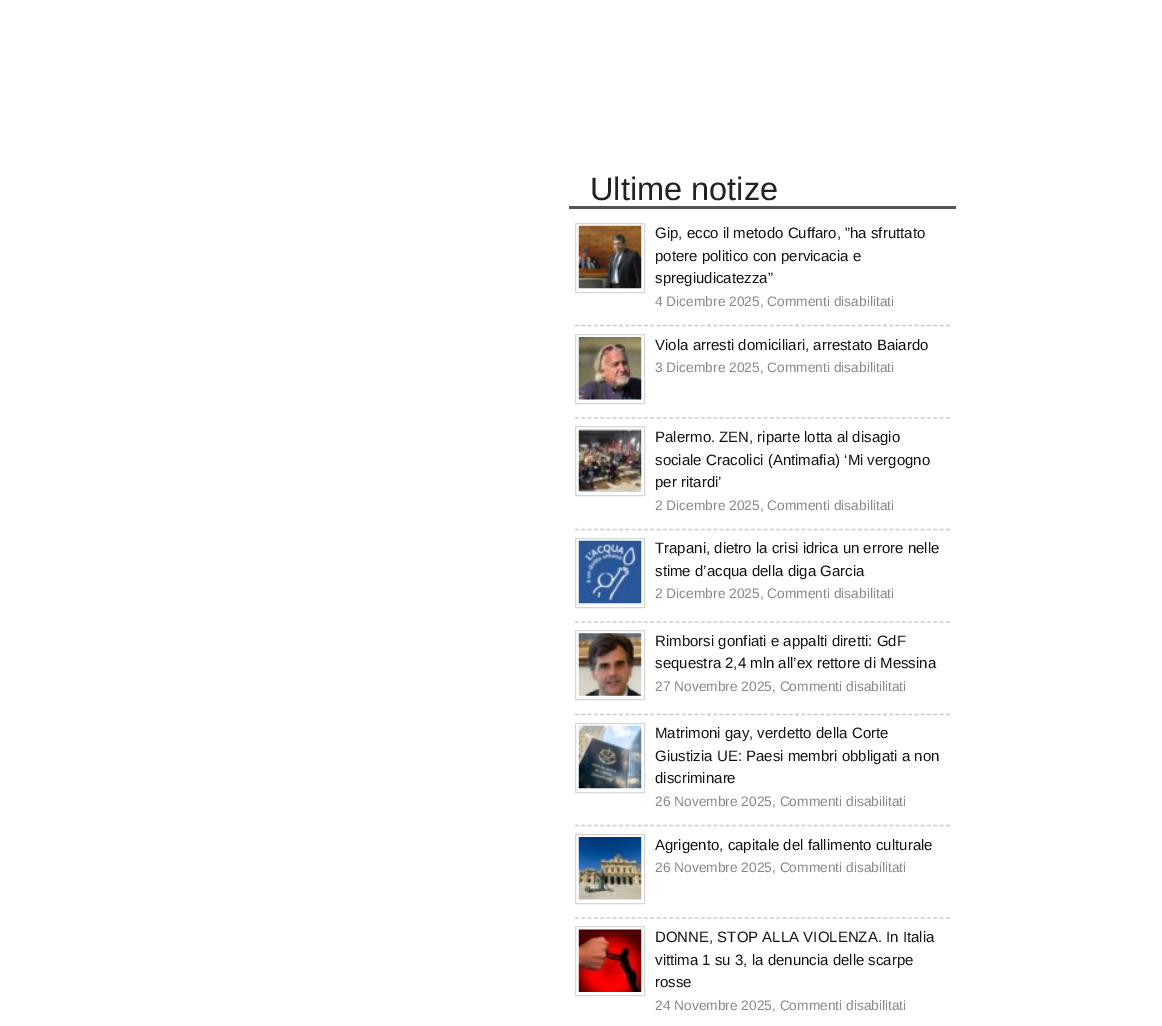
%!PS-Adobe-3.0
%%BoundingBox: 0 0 1162 1026
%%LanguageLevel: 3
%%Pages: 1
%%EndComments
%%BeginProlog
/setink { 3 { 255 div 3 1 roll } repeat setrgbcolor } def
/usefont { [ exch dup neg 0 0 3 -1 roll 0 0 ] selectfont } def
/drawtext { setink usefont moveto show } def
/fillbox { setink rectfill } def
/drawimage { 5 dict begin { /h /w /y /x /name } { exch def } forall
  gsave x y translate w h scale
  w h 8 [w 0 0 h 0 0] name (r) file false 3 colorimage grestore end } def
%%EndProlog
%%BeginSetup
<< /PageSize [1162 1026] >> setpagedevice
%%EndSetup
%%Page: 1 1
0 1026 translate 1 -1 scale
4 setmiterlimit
0 0 1162 1026 255 255 255 fillbox
569 206 387 3 85 85 85 fillbox
(Ultime notize) 590 200 /LiberationSans-Regular 32.5 34 34 34 drawtext
204 204 204 setink
1.2 setlinewidth
[3.75 2.54] 0 setdash
575 325.5 moveto 950 325.5 lineto stroke
215 215 215 setink
1 setlinewidth
[] 0 setdash
575.5 223.5 69 69 rectstroke
(assets/img1.rgb) 578 225 64 64 drawimage
(Gip, ecco il metodo Cuffaro, ”ha sfruttato) 655 238 /LiberationSans-Regular 15 18 18 18 drawtext
(potere politico con pervicacia e) 655 261 /LiberationSans-Regular 15 18 18 18 drawtext
(spregiudicatezza”) 655 283 /LiberationSans-Regular 15 18 18 18 drawtext
(4 Dicembre 2025, Commenti disabilitati) 655 306 /LiberationSans-Regular 13.75 136 136 136 drawtext
204 204 204 setink
1.2 setlinewidth
[3.75 2.54] 0 setdash
575 418 moveto 950 418 lineto stroke
215 215 215 setink
1 setlinewidth
[] 0 setdash
575.5 334.5 69 69 rectstroke
(assets/img2.rgb) 578 337 64 63 drawimage
(Viola arresti domiciliari, arrestato Baiardo) 655 350 /LiberationSans-Regular 15 18 18 18 drawtext
(3 Dicembre 2025, Commenti disabilitati) 655 372 /LiberationSans-Regular 13.75 136 136 136 drawtext
204 204 204 setink
1.2 setlinewidth
[3.75 2.54] 0 setdash
575 529.5 moveto 950 529.5 lineto stroke
215 215 215 setink
1 setlinewidth
[] 0 setdash
575.5 426.5 69 69 rectstroke
(assets/img3.rgb) 578 429 64 63 drawimage
(Palermo. ZEN, riparte lotta al disagio) 655 442 /LiberationSans-Regular 15 18 18 18 drawtext
(sociale Cracolici \(Antimafia\) ‘Mi vergogno) 655 465 /LiberationSans-Regular 15 18 18 18 drawtext
(per ritardi’) 655 487 /LiberationSans-Regular 15 18 18 18 drawtext
(2 Dicembre 2025, Commenti disabilitati) 655 510 /LiberationSans-Regular 13.75 136 136 136 drawtext
204 204 204 setink
1.2 setlinewidth
[3.75 2.54] 0 setdash
575 622 moveto 950 622 lineto stroke
215 215 215 setink
1 setlinewidth
[] 0 setdash
575.5 538.5 69 69 rectstroke
(assets/img4.rgb) 578 540 64 64 drawimage
(Trapani, dietro la crisi idrica un errore nelle) 655 553 /LiberationSans-Regular 15 18 18 18 drawtext
(stime d’acqua della diga Garcia) 655 576 /LiberationSans-Regular 15 18 18 18 drawtext
(2 Dicembre 2025, Commenti disabilitati) 655 598 /LiberationSans-Regular 13.75 136 136 136 drawtext
204 204 204 setink
1.2 setlinewidth
[3.75 2.54] 0 setdash
575 714.5 moveto 950 714.5 lineto stroke
215 215 215 setink
1 setlinewidth
[] 0 setdash
575.5 630.5 69 69 rectstroke
(assets/img5.rgb) 578 633 64 63 drawimage
(Rimborsi gonfiati e appalti diretti: GdF) 655 646 /LiberationSans-Regular 15 18 18 18 drawtext
(sequestra 2,4 mln all’ex rettore di Messina) 655 668 /LiberationSans-Regular 15 18 18 18 drawtext
(27 Novembre 2025, Commenti disabilitati) 655 691 /LiberationSans-Regular 13.75 136 136 136 drawtext
204 204 204 setink
1.2 setlinewidth
[3.75 2.54] 0 setdash
575 825.5 moveto 950 825.5 lineto stroke
215 215 215 setink
1 setlinewidth
[] 0 setdash
575.5 723.5 69 69 rectstroke
(assets/img6.rgb) 578 725 64 64 drawimage
(Matrimoni gay, verdetto della Corte) 655 738 /LiberationSans-Regular 15 18 18 18 drawtext
(Giustizia UE: Paesi membri obbligati a non) 655 761 /LiberationSans-Regular 15 18 18 18 drawtext
(discriminare) 655 783 /LiberationSans-Regular 15 18 18 18 drawtext
(26 Novembre 2025, Commenti disabilitati) 655 806 /LiberationSans-Regular 13.75 136 136 136 drawtext
204 204 204 setink
1.2 setlinewidth
[3.75 2.54] 0 setdash
575 918 moveto 950 918 lineto stroke
215 215 215 setink
1 setlinewidth
[] 0 setdash
575.5 834.5 69 69 rectstroke
(assets/img7.rgb) 578 837 64 63 drawimage
(Agrigento, capitale del fallimento culturale) 655 850 /LiberationSans-Regular 15 18 18 18 drawtext
(26 Novembre 2025, Commenti disabilitati) 655 872 /LiberationSans-Regular 13.75 136 136 136 drawtext
215 215 215 setink
575.5 926.5 69 69 rectstroke
(assets/img8.rgb) 578 929 64 63 drawimage
(DONNE, STOP ALLA VIOLENZA. In Italia) 655 942 /LiberationSans-Regular 15 18 18 18 drawtext
(vittima 1 su 3, la denuncia delle scarpe) 655 965 /LiberationSans-Regular 15 18 18 18 drawtext
(rosse) 655 987 /LiberationSans-Regular 15 18 18 18 drawtext
(24 Novembre 2025, Commenti disabilitati) 655 1010 /LiberationSans-Regular 13.75 136 136 136 drawtext
showpage
%%EOF
